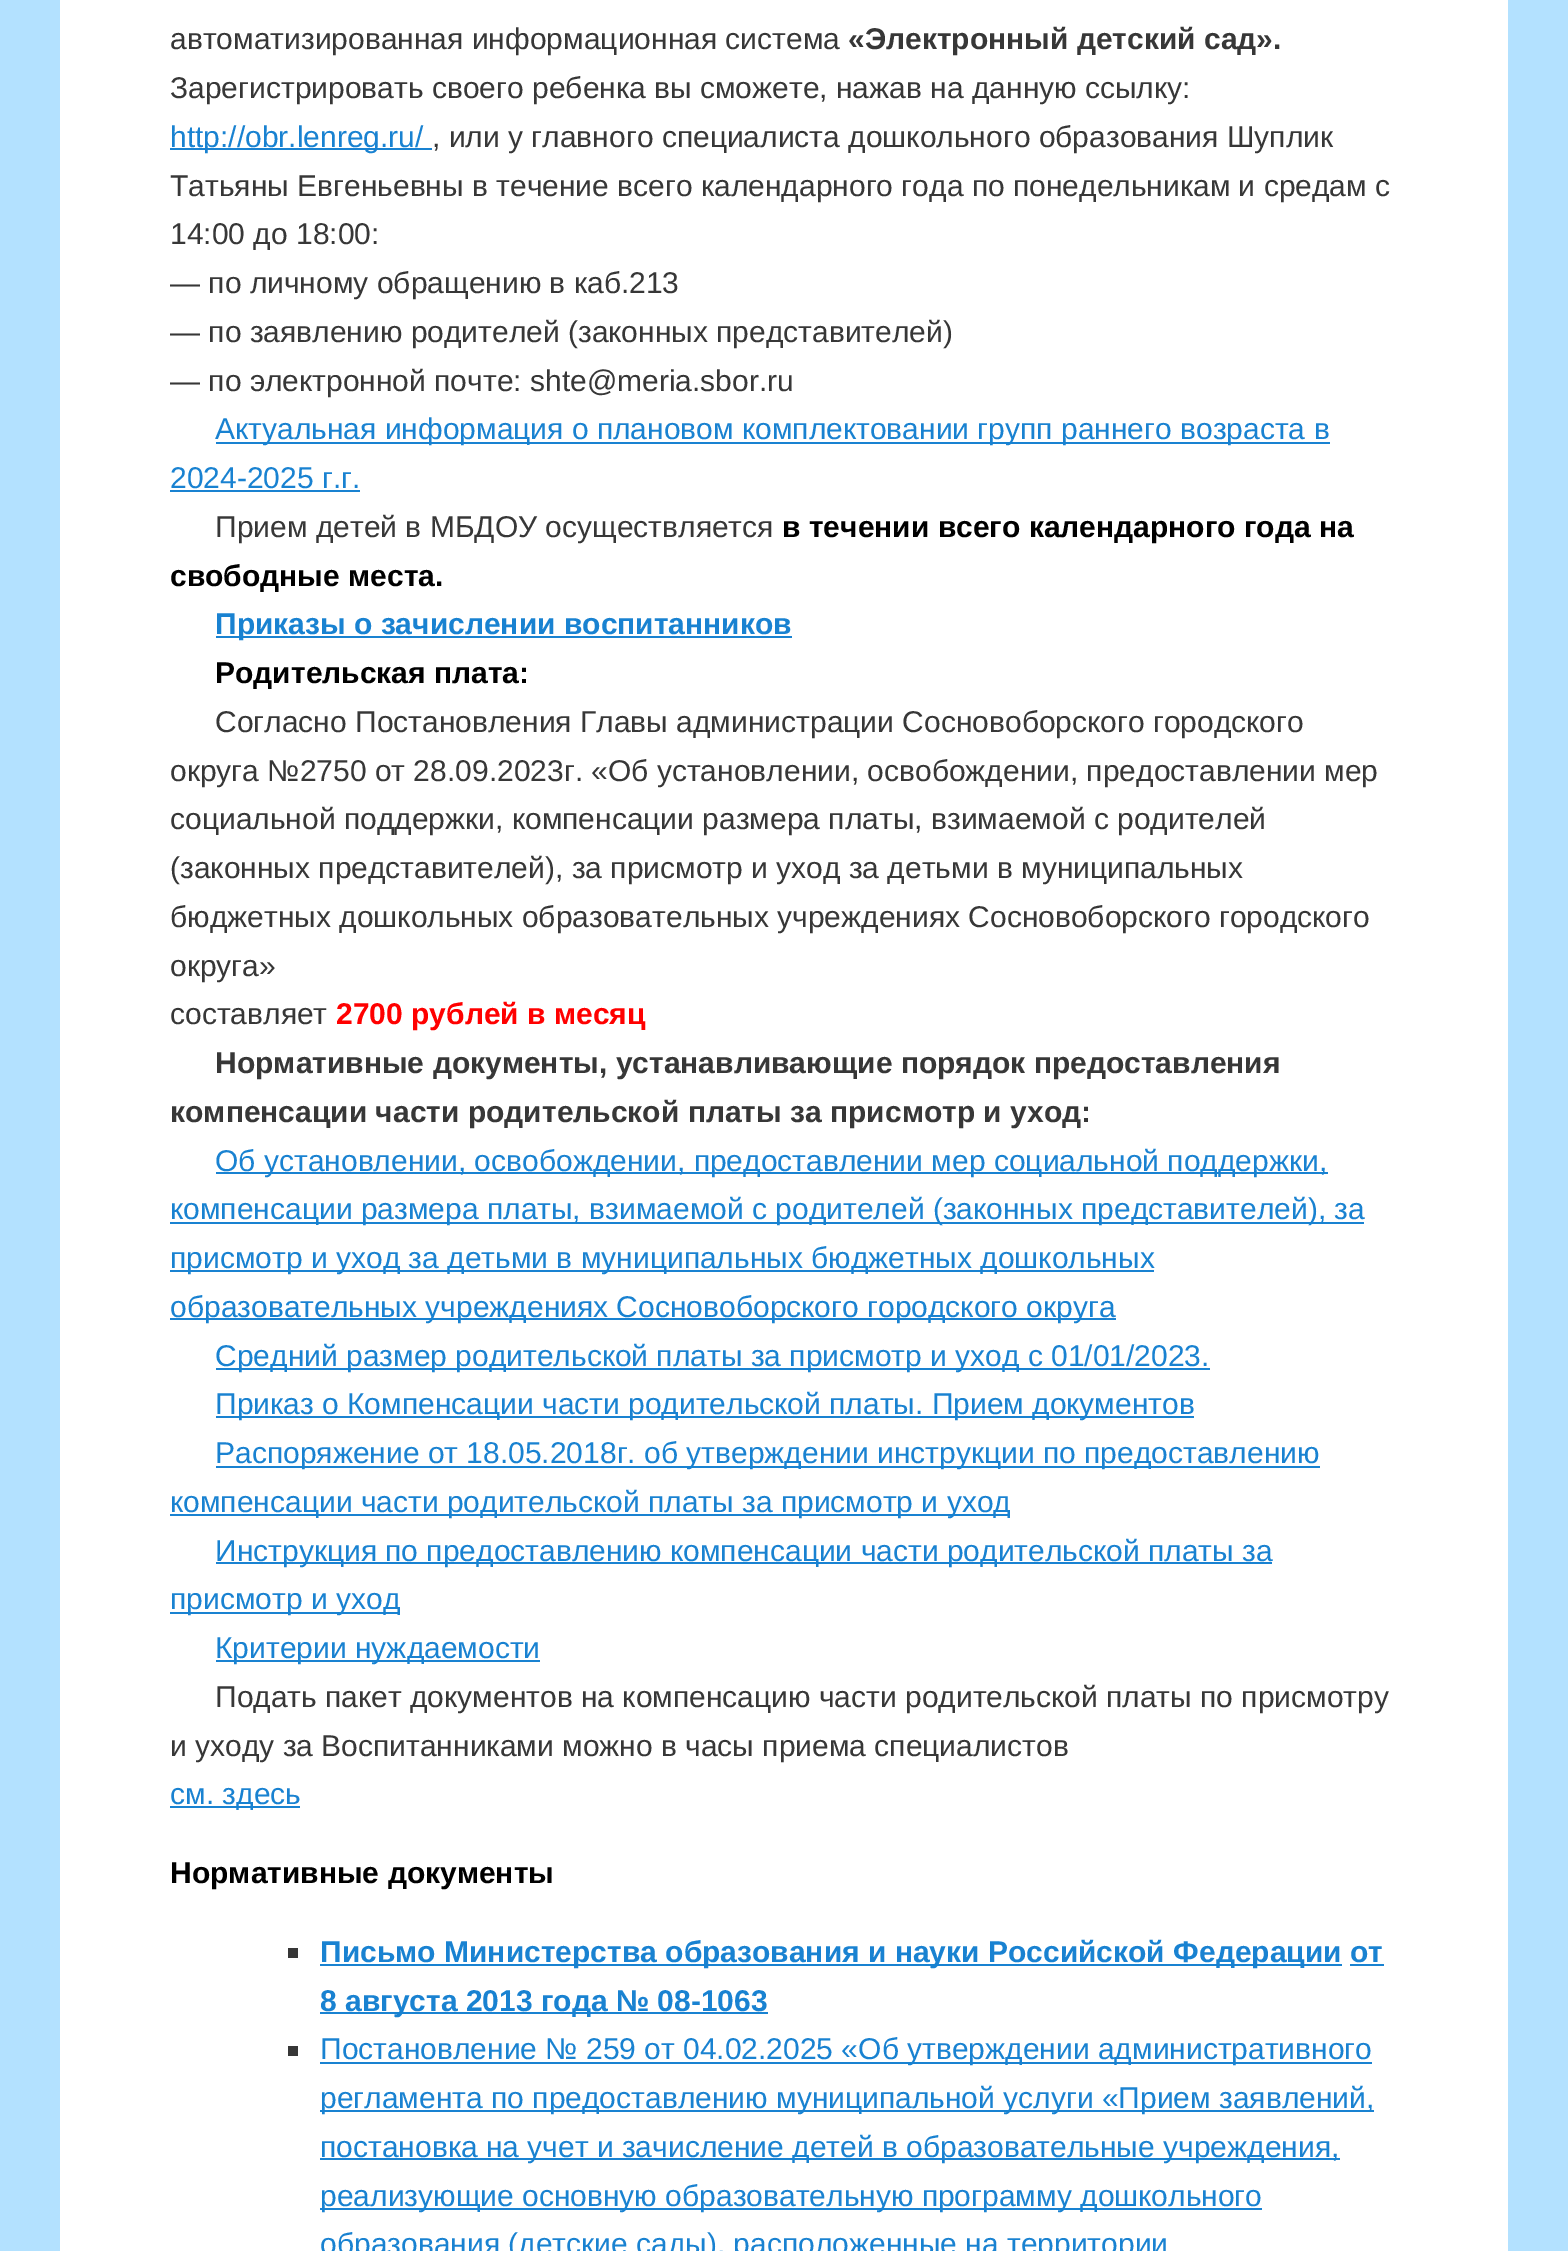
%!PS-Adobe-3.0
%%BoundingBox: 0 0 1568 2251
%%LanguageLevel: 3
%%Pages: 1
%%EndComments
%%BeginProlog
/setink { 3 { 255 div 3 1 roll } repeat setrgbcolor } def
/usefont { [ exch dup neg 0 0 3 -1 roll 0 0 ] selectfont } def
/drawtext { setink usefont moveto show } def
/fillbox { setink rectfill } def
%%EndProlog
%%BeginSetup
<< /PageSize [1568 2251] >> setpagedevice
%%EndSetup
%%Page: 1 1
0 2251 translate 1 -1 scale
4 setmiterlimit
0 0 1568 2251 179 225 255 fillbox
60 0 1448 2251 255 255 255 fillbox
(автоматизированная информационная система) 170 49 /LiberationSans-Regular 30 55 55 55 drawtext
(«Электронный детский сад».) 848 49 /LiberationSans-Bold 30 55 55 55 drawtext
(Зарегистрировать своего ребенка вы сможете, нажав на данную ссылку:) 170 98 /LiberationSans-Regular 30 55 55 55 drawtext
170 148 262 2 25 130 209 fillbox
(http://obr.lenreg.ru/) 170 147 /LiberationSans-Regular 30 25 130 209 drawtext
(, или у главного специалиста дошкольного образования Шуплик) 432 147 /LiberationSans-Regular 30 55 55 55 drawtext
(Татьяны Евгеньевны в течение всего календарного года по понедельникам и средам с) 170 196 /LiberationSans-Regular 30 55 55 55 drawtext
(14:00 до 18:00:) 170 244 /LiberationSans-Regular 30 55 55 55 drawtext
(— по личному обращению в каб.213) 170 293 /LiberationSans-Regular 30 55 55 55 drawtext
(— по заявлению родителей \(законных представителей\)) 170 342 /LiberationSans-Regular 30 55 55 55 drawtext
(— по электронной почте: shte@meria.sbor.ru) 170 391 /LiberationSans-Regular 30 55 55 55 drawtext
216 442 1114 2 25 130 209 fillbox
(Актуальная информация о плановом комплектовании групп раннего возраста в) 215 439 /LiberationSans-Regular 30 25 130 209 drawtext
(2024-2025 г.г.) 170 488 /LiberationSans-Regular 30 25 130 209 drawtext
170 490 190 2 25 130 209 fillbox
(Прием детей в МБДОУ осуществляется) 215 537 /LiberationSans-Regular 30 55 55 55 drawtext
(в течении всего календарного года на) 782 537 /LiberationSans-Bold 30 0 0 0 drawtext
(свободные места.) 170 586 /LiberationSans-Bold 30 0 0 0 drawtext
216 636 576 2 25 130 209 fillbox
(Приказы о зачислении воспитанников) 215 634 /LiberationSans-Bold 30 25 130 209 drawtext
(Родительская плата:) 215 683 /LiberationSans-Bold 30 0 0 0 drawtext
(Согласно Постановления Главы администрации Сосновоборского городского) 215 732 /LiberationSans-Regular 30 55 55 55 drawtext
(округа №2750 от 28.09.2023г. «Об установлении, освобождении, предоставлении мер) 170 781 /LiberationSans-Regular 30 55 55 55 drawtext
(социальной поддержки, компенсации размера платы, взимаемой с родителей) 170 829 /LiberationSans-Regular 30 55 55 55 drawtext
(\(законных представителей\), за присмотр и уход за детьми в муниципальных) 170 878 /LiberationSans-Regular 30 55 55 55 drawtext
(бюджетных дошкольных образовательных учреждениях Сосновоборского городского) 170 927 /LiberationSans-Regular 30 55 55 55 drawtext
(округа») 170 976 /LiberationSans-Regular 30 55 55 55 drawtext
(составляет) 170 1024 /LiberationSans-Regular 30 55 55 55 drawtext
(2700 рублей в месяц) 336 1024 /LiberationSans-Bold 30 255 0 0 drawtext
(Нормативные документы, устанавливающие порядок предоставления) 215 1073 /LiberationSans-Bold 30 55 55 55 drawtext
(компенсации части родительской платы за присмотр и уход:) 170 1122 /LiberationSans-Bold 30 55 55 55 drawtext
216 1172 1112 2 25 130 209 fillbox
(Об установлении, освобождении, предоставлении мер социальной поддержки,) 215 1171 /LiberationSans-Regular 30 25 130 209 drawtext
170 1222 1194 2 25 130 209 fillbox
(компенсации размера платы, взимаемой с родителей \(законных представителей\), за) 170 1219 /LiberationSans-Regular 30 25 130 209 drawtext
170 1270 984 2 25 130 209 fillbox
(присмотр и уход за детьми в муниципальных бюджетных дошкольных) 170 1268 /LiberationSans-Regular 30 25 130 209 drawtext
170 1318 946 2 25 130 209 fillbox
(образовательных учреждениях Сосновоборского городского округа) 170 1317 /LiberationSans-Regular 30 25 130 209 drawtext
216 1368 994 2 25 130 209 fillbox
(Средний размер родительской платы за присмотр и уход c 01/01/2023.) 215 1366 /LiberationSans-Regular 30 25 130 209 drawtext
216 1416 978 2 25 130 209 fillbox
(Приказ о Компенсации части родительской платы. Прием документов) 215 1414 /LiberationSans-Regular 30 25 130 209 drawtext
216 1466 1104 2 25 130 209 fillbox
(Распоряжение от 18.05.2018г. об утверждении инструкции по предоставлению) 215 1463 /LiberationSans-Regular 30 25 130 209 drawtext
170 1514 840 2 25 130 209 fillbox
(компенсации части родительской платы за присмотр и уход) 170 1512 /LiberationSans-Regular 30 25 130 209 drawtext
216 1562 1056 2 25 130 209 fillbox
(Инструкция по предоставлению компенсации части родительской платы за) 215 1561 /LiberationSans-Regular 30 25 130 209 drawtext
170 1612 230 2 25 130 209 fillbox
(присмотр и уход) 170 1609 /LiberationSans-Regular 30 25 130 209 drawtext
216 1660 324 2 25 130 209 fillbox
(Критерии нуждаемости) 215 1658 /LiberationSans-Regular 30 25 130 209 drawtext
(Подать пакет документов на компенсацию части родительской платы по присмотру) 215 1707 /LiberationSans-Regular 30 55 55 55 drawtext
(и уходу за Воспитанниками можно в часы приема специалистов) 170 1756 /LiberationSans-Regular 30 55 55 55 drawtext
170 1806 130 2 25 130 209 fillbox
(см. здесь) 170 1804 /LiberationSans-Regular 30 25 130 209 drawtext
(Нормативные документы) 170 1883 /LiberationSans-Bold 30 0 0 0 drawtext
288 1948 10 10 55 55 55 fillbox
320 1964 1022 2 25 130 209 fillbox
(Письмо Министерства образования и науки Российской Федерации от) 320 1962 /LiberationSans-Bold 30 25 130 209 drawtext
320 2012 448 2 25 130 209 fillbox
(8 августа 2013 года № 08-1063) 320 2011 /LiberationSans-Bold 30 25 130 209 drawtext
1350 1964 34 2 25 130 209 fillbox
288 2046 10 10 55 55 55 fillbox
320 2062 1052 2 25 130 209 fillbox
(Постановление № 259 от 04.02.2025 «Об утверждении административного) 320 2059 /LiberationSans-Regular 30 25 130 209 drawtext
320 2110 1054 2 25 130 209 fillbox
(регламента по предоставлению муниципальной услуги «Прием заявлений,) 320 2108 /LiberationSans-Regular 30 25 130 209 drawtext
320 2158 1020 2 25 130 209 fillbox
(постановка на учет и зачисление детей в образовательные учреждения,) 320 2157 /LiberationSans-Regular 30 25 130 209 drawtext
320 2208 942 2 25 130 209 fillbox
(реализующие основную образовательную программу дошкольного) 320 2206 /LiberationSans-Regular 30 25 130 209 drawtext
(образования \(детские сады\), расположенные на территории) 320 2254 /LiberationSans-Regular 30 25 130 209 drawtext
showpage
%%EOF
